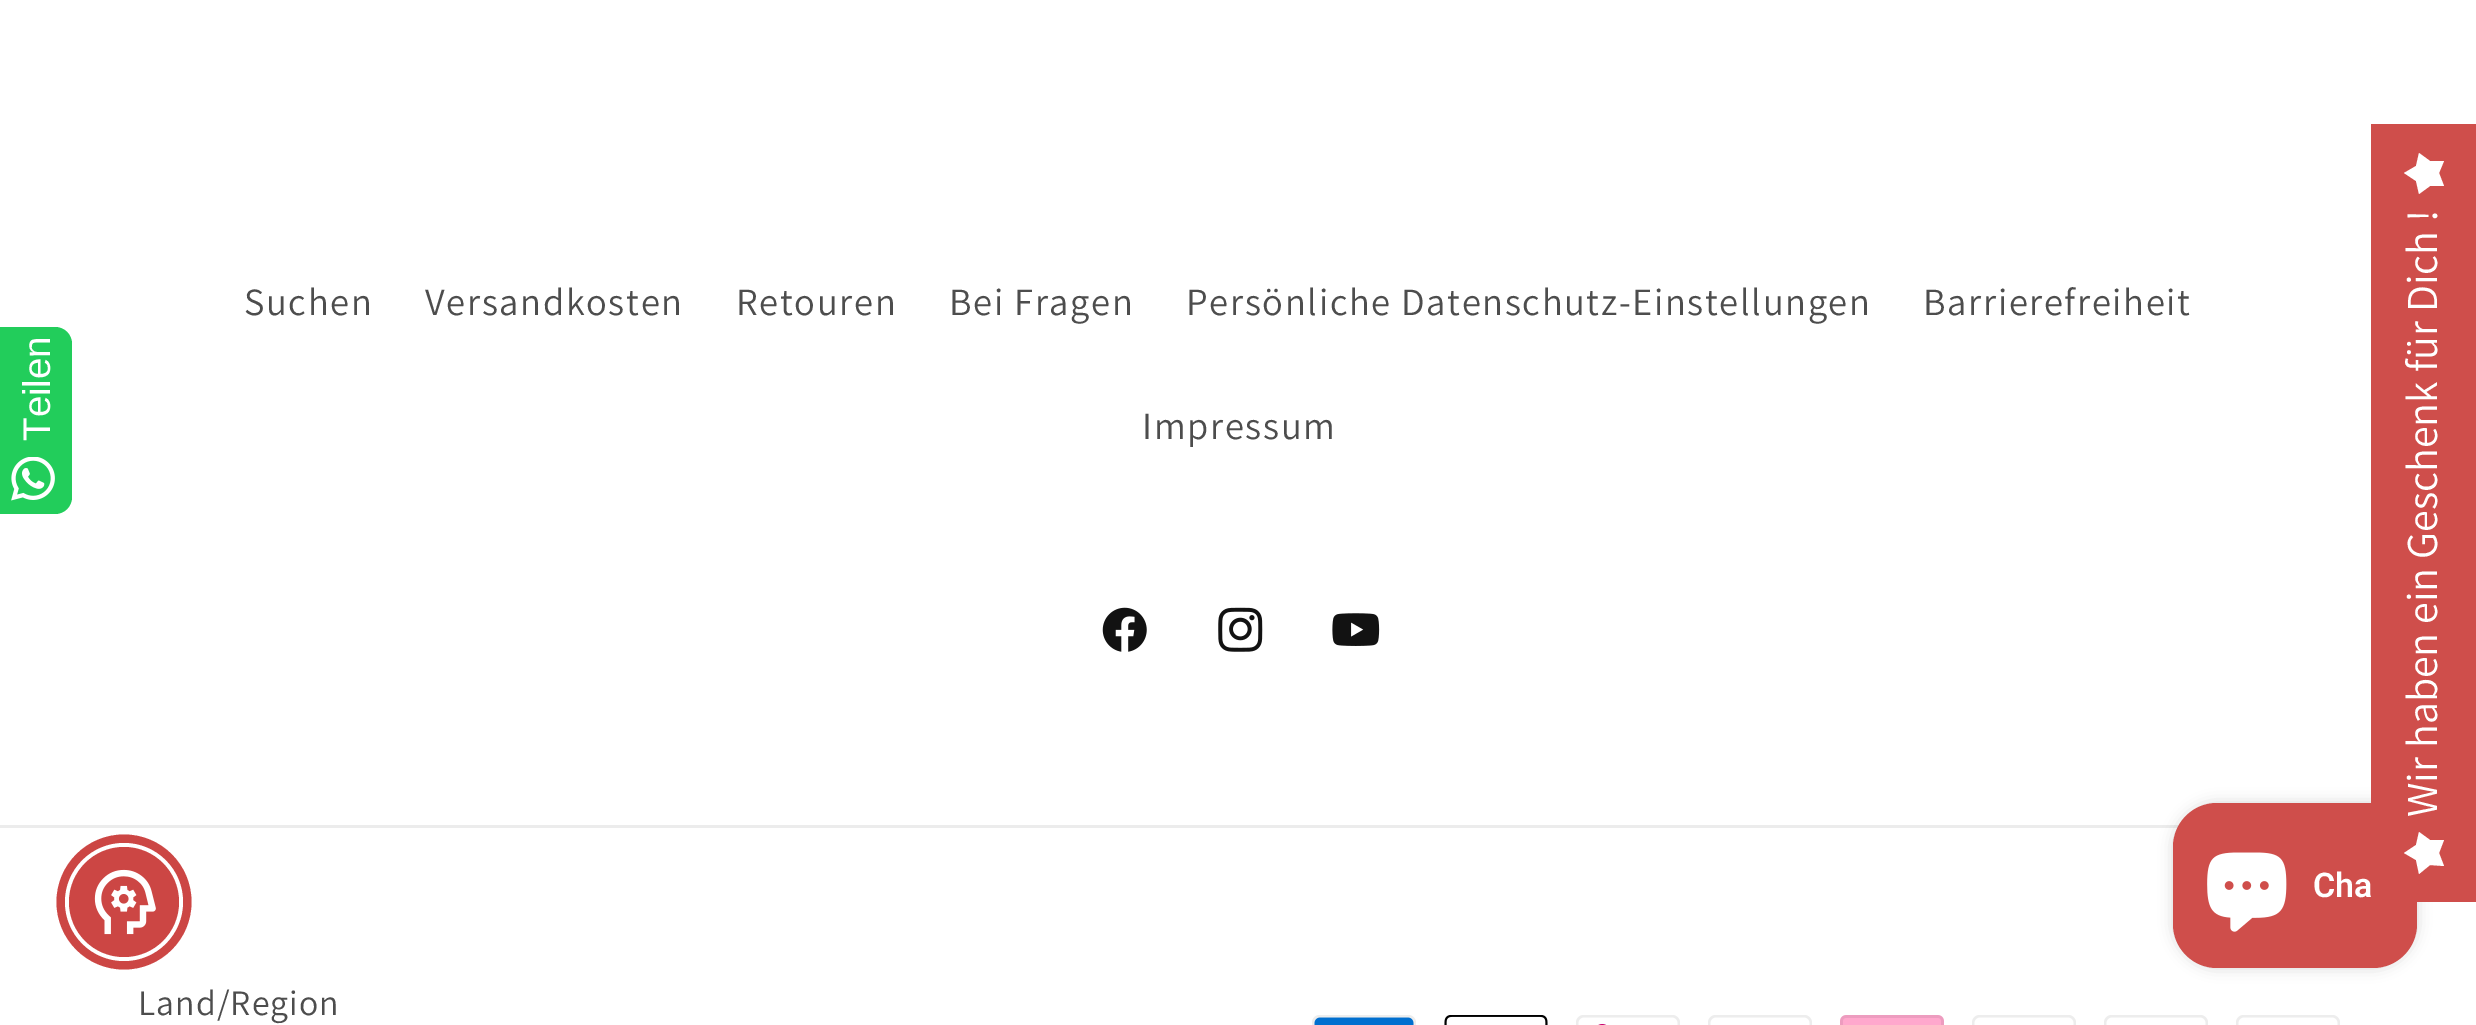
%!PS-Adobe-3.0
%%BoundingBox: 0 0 2476 1025
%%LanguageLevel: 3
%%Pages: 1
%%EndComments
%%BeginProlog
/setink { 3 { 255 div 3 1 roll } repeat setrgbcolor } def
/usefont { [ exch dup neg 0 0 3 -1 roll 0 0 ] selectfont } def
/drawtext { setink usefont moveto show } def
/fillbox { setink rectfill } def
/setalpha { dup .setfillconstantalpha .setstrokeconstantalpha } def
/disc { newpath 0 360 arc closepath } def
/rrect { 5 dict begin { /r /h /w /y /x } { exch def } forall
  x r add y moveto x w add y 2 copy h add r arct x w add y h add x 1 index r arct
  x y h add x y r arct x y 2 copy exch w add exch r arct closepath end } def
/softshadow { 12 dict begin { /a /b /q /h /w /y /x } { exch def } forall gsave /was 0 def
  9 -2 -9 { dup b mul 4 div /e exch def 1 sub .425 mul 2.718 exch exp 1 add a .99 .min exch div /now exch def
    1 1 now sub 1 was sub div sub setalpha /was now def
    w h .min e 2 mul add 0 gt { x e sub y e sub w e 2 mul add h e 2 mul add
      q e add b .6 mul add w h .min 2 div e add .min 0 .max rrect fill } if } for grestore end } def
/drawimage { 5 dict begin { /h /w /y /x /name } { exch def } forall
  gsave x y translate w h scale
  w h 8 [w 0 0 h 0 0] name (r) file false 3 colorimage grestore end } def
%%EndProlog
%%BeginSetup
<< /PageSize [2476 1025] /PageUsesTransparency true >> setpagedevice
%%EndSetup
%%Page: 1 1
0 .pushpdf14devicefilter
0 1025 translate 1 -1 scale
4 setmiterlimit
0 0 2476 1025 255 255 255 fillbox
34 205 91 setink
0 327 moveto 55 327 lineto 64.5 327 72 334.5 72 344 curveto 72 497 lineto 72 506.5 64.5 514 55 514 curveto 0 514 lineto closepath fill
/LiberationSans-Regular 38.5 usefont
255 255 255 setink
gsave 50 441 translate -90 rotate 0 0 moveto (Teilen) show grestore
(assets/img1.rgb) 11 457 44 44 drawimage
/Assistant-Regular 38.5 usefont
77 77 77 setink
244 315 moveto 1.65 0 (Suchen) ashow
425 315 moveto 1.65 0 (Versandkosten) ashow
736 315 moveto 1.65 0 (Retouren) ashow
949 315 moveto 1.65 0 (Bei Fragen) ashow
1186 315 moveto 1.65 0 (Persönliche Datenschutz-Einstellungen) ashow
1923 315 moveto 1.65 0 (Barrierefreiheit) ashow
1142 439 moveto 1.65 0 (Impressum) ashow
(assets/img2.rgb) 1102 607 45 45 drawimage
(assets/img3.rgb) 1218 607 45 45 drawimage
(assets/img4.rgb) 1332 613 48 33 drawimage
0 825 2179 3 236 236 236 fillbox
/Assistant-Regular 35.75 usefont
77 77 77 setink
138 1015 moveto 1.1 0 (Land/Region) ashow
(assets/img5.rgb) 1312 1015 104 10 drawimage
(assets/img6.rgb) 1444 1015 104 10 drawimage
(assets/img7.rgb) 1576 1015 104 10 drawimage
(assets/img8.rgb) 1708 1015 104 10 drawimage
(assets/img9.rgb) 1840 1015 104 10 drawimage
(assets/img8.rgb) 1972 1015 104 10 drawimage
(assets/img8.rgb) 2104 1015 104 10 drawimage
(assets/img8.rgb) 2236 1015 104 10 drawimage
0 0 0 setink
2173 803 244 165 44 7 0.15 softshadow
207 78 75 setink
2173 803 244 165 44 rrect fill
(Cha) 2313 897 /Roboto-SemiBold 34 255 255 255 drawtext
2371 124 105 778 207 78 75 fillbox
255 255 255 setink
2404 173 moveto 2416 166 lineto 2419 153 lineto 2430 161 lineto 2444 161 lineto 2439 173 lineto 2444 186 lineto 2430 186 lineto 2419 194 lineto 2416 181 lineto closepath fill
/Assistant-Regular 44 usefont
gsave 2437 817 translate -90 rotate 0 0 moveto (Wir haben ein Geschenk für Dich !) show grestore
2404 853 moveto 2416 845 lineto 2419 832 lineto 2430 840 lineto 2444 840 lineto 2439 853 lineto 2444 866 lineto 2430 865 lineto 2419 874 lineto 2416 860 lineto closepath fill
204 70 68 setink
124 902 67.5 disc fill
255 255 255 setink
124 902 59 disc fill
204 70 68 setink
124 902 55 disc fill
(assets/img10.rgb) 94 869 62 66 drawimage
(assets/img11.rgb) 2207 852 80 80 drawimage
.poppdf14devicefilter showpage
%%EOF
